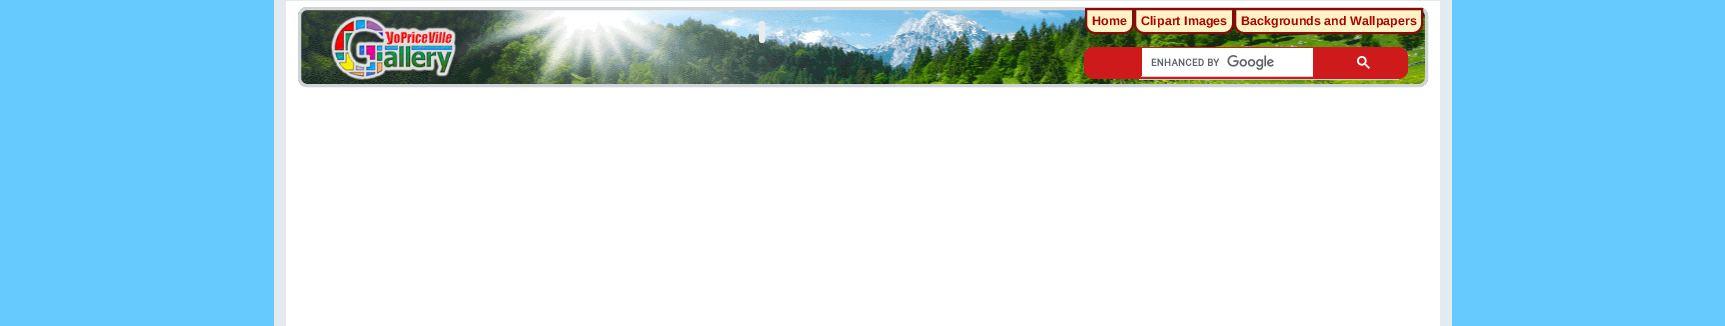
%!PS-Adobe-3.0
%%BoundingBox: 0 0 1725 326
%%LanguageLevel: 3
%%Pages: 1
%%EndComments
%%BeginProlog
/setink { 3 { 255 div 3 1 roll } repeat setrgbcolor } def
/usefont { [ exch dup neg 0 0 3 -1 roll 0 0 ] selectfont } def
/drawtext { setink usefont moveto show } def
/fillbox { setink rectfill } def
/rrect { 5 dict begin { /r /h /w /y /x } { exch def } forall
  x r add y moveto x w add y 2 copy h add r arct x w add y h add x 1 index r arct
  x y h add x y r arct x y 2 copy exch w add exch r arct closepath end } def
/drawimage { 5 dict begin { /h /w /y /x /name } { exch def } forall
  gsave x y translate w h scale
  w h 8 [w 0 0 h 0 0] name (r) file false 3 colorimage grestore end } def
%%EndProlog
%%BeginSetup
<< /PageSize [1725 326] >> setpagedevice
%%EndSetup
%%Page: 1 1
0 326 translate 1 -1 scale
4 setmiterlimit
0 0 1725 326 102 202 254 fillbox
286 1 1154 325 255 255 255 fillbox
286 0 1154 1 228 235 239 fillbox
1440 0 12 326 228 235 239 fillbox
274 0 12 326 228 235 239 fillbox
(assets/img1.rgb) 298 7 1130 80 drawimage
209 212 214 setink
3 setlinewidth
299.5 8.5 1127 77 7.5 rrect stroke
(assets/img2.rgb) 329 16 128 67 drawimage
206 26 26 setink
1084 47 324 32 10 rrect fill
1142 48 171 28 255 255 255 fillbox
(assets/img3.rgb) 1151 55 123 15 drawimage
1141 76 172 1 204 204 204 fillbox
1139 79 260 1 204 204 204 fillbox
(assets/img4.rgb) 1357 56 13 13 drawimage
233 236 235 setink
759 21 6 22 3 rrect fill
255 243 198 setink
1086 9 moveto 1133 9 lineto 1133 24 lineto 1133 29 1129 33 1124 33 curveto 1095 33 lineto 1090 33 1086 29 1086 24 curveto closepath gsave fill grestore
134 12 12 setink
2 setlinewidth
stroke
(Home) 1092 25 /LiberationSans-Bold 12.5 170 4 3 drawtext
255 243 198 setink
1135 9 moveto 1233 9 lineto 1233 24 lineto 1233 29 1229 33 1224 33 curveto 1144 33 lineto 1139 33 1135 29 1135 24 curveto closepath gsave fill grestore
134 12 12 setink
stroke
(Clipart Images) 1141 25 /LiberationSans-Bold 12.5 170 4 3 drawtext
255 243 198 setink
1235 9 moveto 1422 9 lineto 1422 24 lineto 1422 29 1418 33 1413 33 curveto 1244 33 lineto 1239 33 1235 29 1235 24 curveto closepath gsave fill grestore
134 12 12 setink
stroke
(Backgrounds and Wallpapers) 1241 25 /LiberationSans-Bold 12.5 170 4 3 drawtext
showpage
%%EOF
